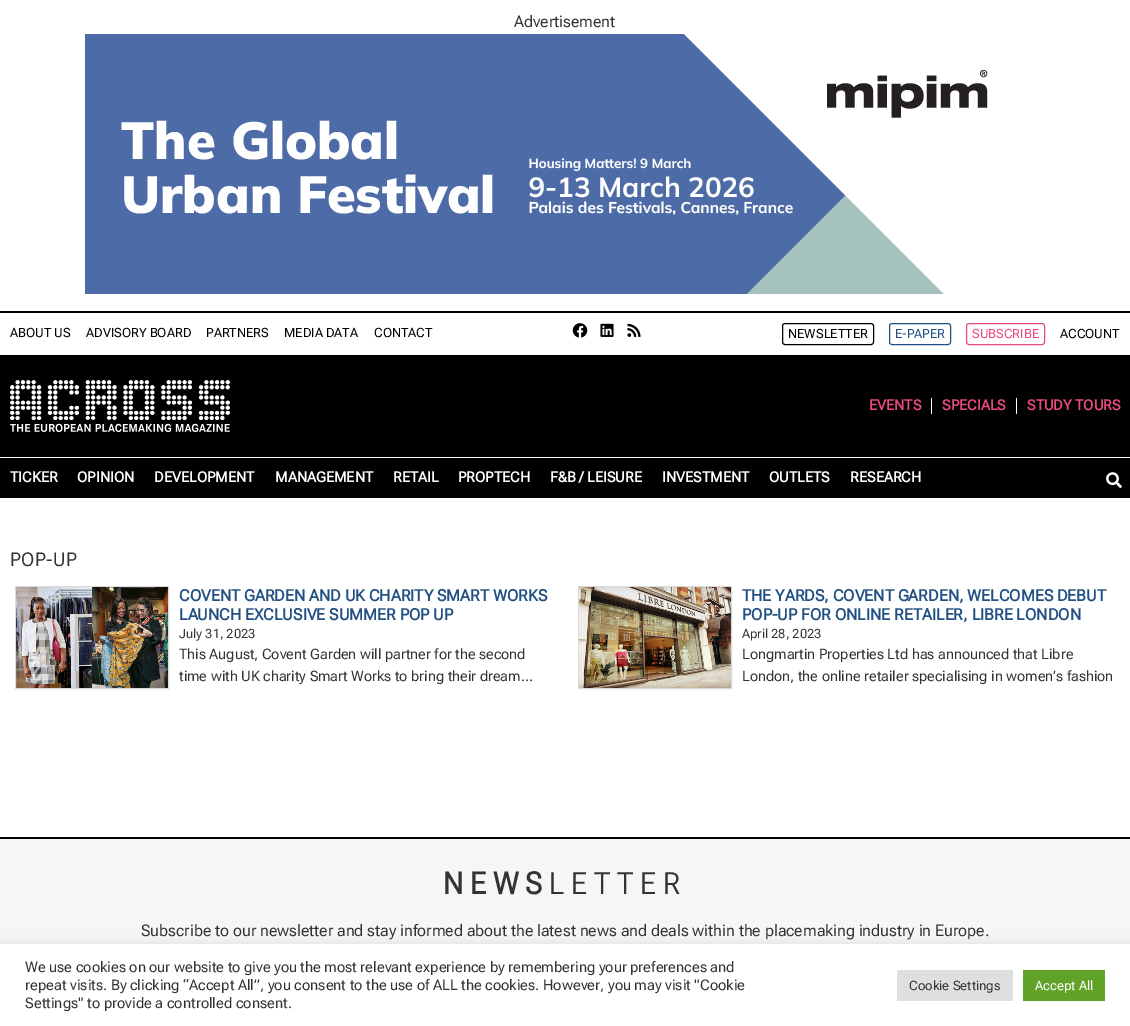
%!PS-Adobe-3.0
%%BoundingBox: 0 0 1130 1026
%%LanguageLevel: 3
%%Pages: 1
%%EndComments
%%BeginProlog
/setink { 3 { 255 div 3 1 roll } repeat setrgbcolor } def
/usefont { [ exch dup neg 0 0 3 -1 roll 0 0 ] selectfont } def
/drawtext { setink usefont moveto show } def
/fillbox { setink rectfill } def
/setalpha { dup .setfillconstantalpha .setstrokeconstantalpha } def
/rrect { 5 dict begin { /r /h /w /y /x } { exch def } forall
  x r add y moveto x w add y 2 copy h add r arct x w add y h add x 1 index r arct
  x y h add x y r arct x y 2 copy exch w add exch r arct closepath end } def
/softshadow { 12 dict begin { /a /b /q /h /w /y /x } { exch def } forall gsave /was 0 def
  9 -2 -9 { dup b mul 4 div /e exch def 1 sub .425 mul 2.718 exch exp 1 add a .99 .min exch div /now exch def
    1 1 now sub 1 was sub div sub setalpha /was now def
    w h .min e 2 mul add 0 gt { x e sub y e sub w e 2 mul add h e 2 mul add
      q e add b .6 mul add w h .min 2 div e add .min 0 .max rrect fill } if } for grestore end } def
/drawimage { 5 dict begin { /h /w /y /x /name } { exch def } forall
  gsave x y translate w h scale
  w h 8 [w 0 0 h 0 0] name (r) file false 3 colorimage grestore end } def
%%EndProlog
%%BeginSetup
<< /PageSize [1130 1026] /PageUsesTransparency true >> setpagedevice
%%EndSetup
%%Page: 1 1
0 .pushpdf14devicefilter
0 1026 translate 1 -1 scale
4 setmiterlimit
0 0 1130 1026 255 255 255 fillbox
(Advertisement) 514 27 /RobotoFlex-Regular 16 51 51 51 drawtext
(assets/img1.rgb) 85 34 903 260 drawimage
0 311 1130 2 0 0 0 fillbox
(ABOUT US) 10 337 /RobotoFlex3-Regular 12.75 0 0 0 drawtext
(ADVISORY BOARD) 86 337 /RobotoFlex3-Regular 12.75 0 0 0 drawtext
(PARTNERS) 206 337 /RobotoFlex3-Regular 12.75 0 0 0 drawtext
(MEDIA DATA) 284 337 /RobotoFlex3-Regular 12.75 0 0 0 drawtext
(CONTACT) 374 337 /RobotoFlex3-Regular 12.75 0 0 0 drawtext
(assets/img2.rgb) 572 323 16 15 drawimage
(assets/img3.rgb) 600 323 14 14 drawimage
(assets/img4.rgb) 627 323 14 14 drawimage
782.5 323.5 91 21 2.5 rrect stroke
(NEWSLETTER) 788 338 /RobotoFlex3-Regular 12.75 0 0 0 drawtext
34 80 131 setink
889.5 323.5 61 21 2.5 rrect stroke
(E-PAPER) 895 338 /RobotoFlex3-Regular 12.75 34 80 131 drawtext
235 74 127 setink
966.5 323.5 78 21 2.5 rrect stroke
(SUBSCRIBE) 972 338 /RobotoFlex3-Regular 12.75 235 74 127 drawtext
(ACCOUNT) 1060 338 /RobotoFlex3-Regular 12.75 0 0 0 drawtext
0 355 1130 102 0 0 0 fillbox
(assets/img5.rgb) 10 380 220 52 drawimage
(EVENTS) 869 410 /RobotoFlex3-Bold 14.4 235 74 127 drawtext
931 398 1 16 255 255 255 fillbox
(SPECIALS) 942 410 /RobotoFlex3-Bold 14.4 235 74 127 drawtext
1016 398 1 16 255 255 255 fillbox
(STUDY TOURS) 1027 410 /RobotoFlex3-Bold 14.4 235 74 127 drawtext
0 458 1130 40 0 0 0 fillbox
(TICKER) 10 482 /RobotoFlex3-Bold 14.4 255 255 255 drawtext
(OPINION) 77 482 /RobotoFlex3-Bold 14.4 255 255 255 drawtext
(DEVELOPMENT) 154 482 /RobotoFlex3-Bold 14.4 255 255 255 drawtext
(MANAGEMENT) 275 482 /RobotoFlex3-Bold 14.4 255 255 255 drawtext
(RETAIL) 393 482 /RobotoFlex3-Bold 14.4 255 255 255 drawtext
(PROPTECH) 458 482 /RobotoFlex3-Bold 14.4 255 255 255 drawtext
(F&B / LEISURE) 550 482 /RobotoFlex3-Bold 14.4 255 255 255 drawtext
(INVESTMENT) 662 482 /RobotoFlex3-Bold 14.4 255 255 255 drawtext
(OUTLETS) 769 482 /RobotoFlex3-Bold 14.4 255 255 255 drawtext
(RESEARCH) 850 482 /RobotoFlex3-Bold 14.4 255 255 255 drawtext
(assets/img6.rgb) 1106 472 16 16 drawimage
/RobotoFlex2-Regular 19 usefont
51 51 51 setink
10 566 moveto 0.5 0 (POP-UP) ashow
218 218 218 setink
15.5 586.5 153 102 rectstroke
(assets/img7.rgb) 16 587 152 101 drawimage
(COVENT GARDEN AND UK CHARITY SMART WORKS) 179 601 /RobotoFlex-Bold 16 34 80 131 drawtext
(LAUNCH EXCLUSIVE SUMMER POP UP) 179 620 /RobotoFlex-Bold 16 34 80 131 drawtext
(July 31, 2023) 179 638 /RobotoFlex3-Regular 12.75 51 51 51 drawtext
(This August, Covent Garden will partner for the second) 179 659 /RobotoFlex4-Regular 14.4 51 51 51 drawtext
(time with UK charity Smart Works to bring their dream…) 179 681 /RobotoFlex4-Regular 14.4 51 51 51 drawtext
218 218 218 setink
578.5 586.5 153 102 rectstroke
(assets/img8.rgb) 579 587 152 101 drawimage
(THE YARDS, COVENT GARDEN, WELCOMES DEBUT) 742 601 /RobotoFlex-Bold 16 34 80 131 drawtext
(POP-UP FOR ONLINE RETAILER, LIBRE LONDON) 742 620 /RobotoFlex-Bold 16 34 80 131 drawtext
(April 28, 2023) 742 638 /RobotoFlex3-Regular 12.75 51 51 51 drawtext
(Longmartin Properties Ltd has announced that Libre) 742 659 /RobotoFlex4-Regular 14.4 51 51 51 drawtext
(London, the online retailer specialising in women’s fashion) 742 681 /RobotoFlex4-Regular 14.4 51 51 51 drawtext
0 839 1130 105 246 246 246 fillbox
0 837 1130 2 0 0 0 fillbox
/RobotoFlex2-Bold 30.5 usefont
51 51 51 setink
443 894 moveto 7 0 (NEWS) ashow
/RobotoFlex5-Regular 30.5 usefont
549 894 moveto 7 0 (LETTER) ashow
(Subscribe to our newsletter and stay informed about the latest news and deals within the placemaking industry in Europe.) 141 936 /RobotoFlex-Regular 16 51 51 51 drawtext
172 171 171 setink
0 943 1130 82 0 5 0.3 softshadow
0 944 1130 82 255 255 255 fillbox
/RobotoFlex4-Regular 14.65 usefont
51 51 51 setink
25 972 moveto -0.2 0 32 (We use cookies on our website to give you the most relevant experience by remembering your preferences and) widthshow
25 990 moveto -0.1 0 32 (repeat visits. By clicking “Accept All”, you consent to the use of ALL the cookies. However, you may visit "Cookie) widthshow
(Settings" to provide a controlled consent.) 25 1008 /RobotoFlex4-Regular 14.65 51 51 51 drawtext
897 970 116 31 222 223 224 fillbox
(Cookie Settings) 909 990 /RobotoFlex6-Regular 13 51 51 51 drawtext
1023 970 82 31 97 162 41 fillbox
(Accept All) 1035 990 /RobotoFlex6-Regular 13 255 255 255 drawtext
.poppdf14devicefilter showpage
%%EOF
